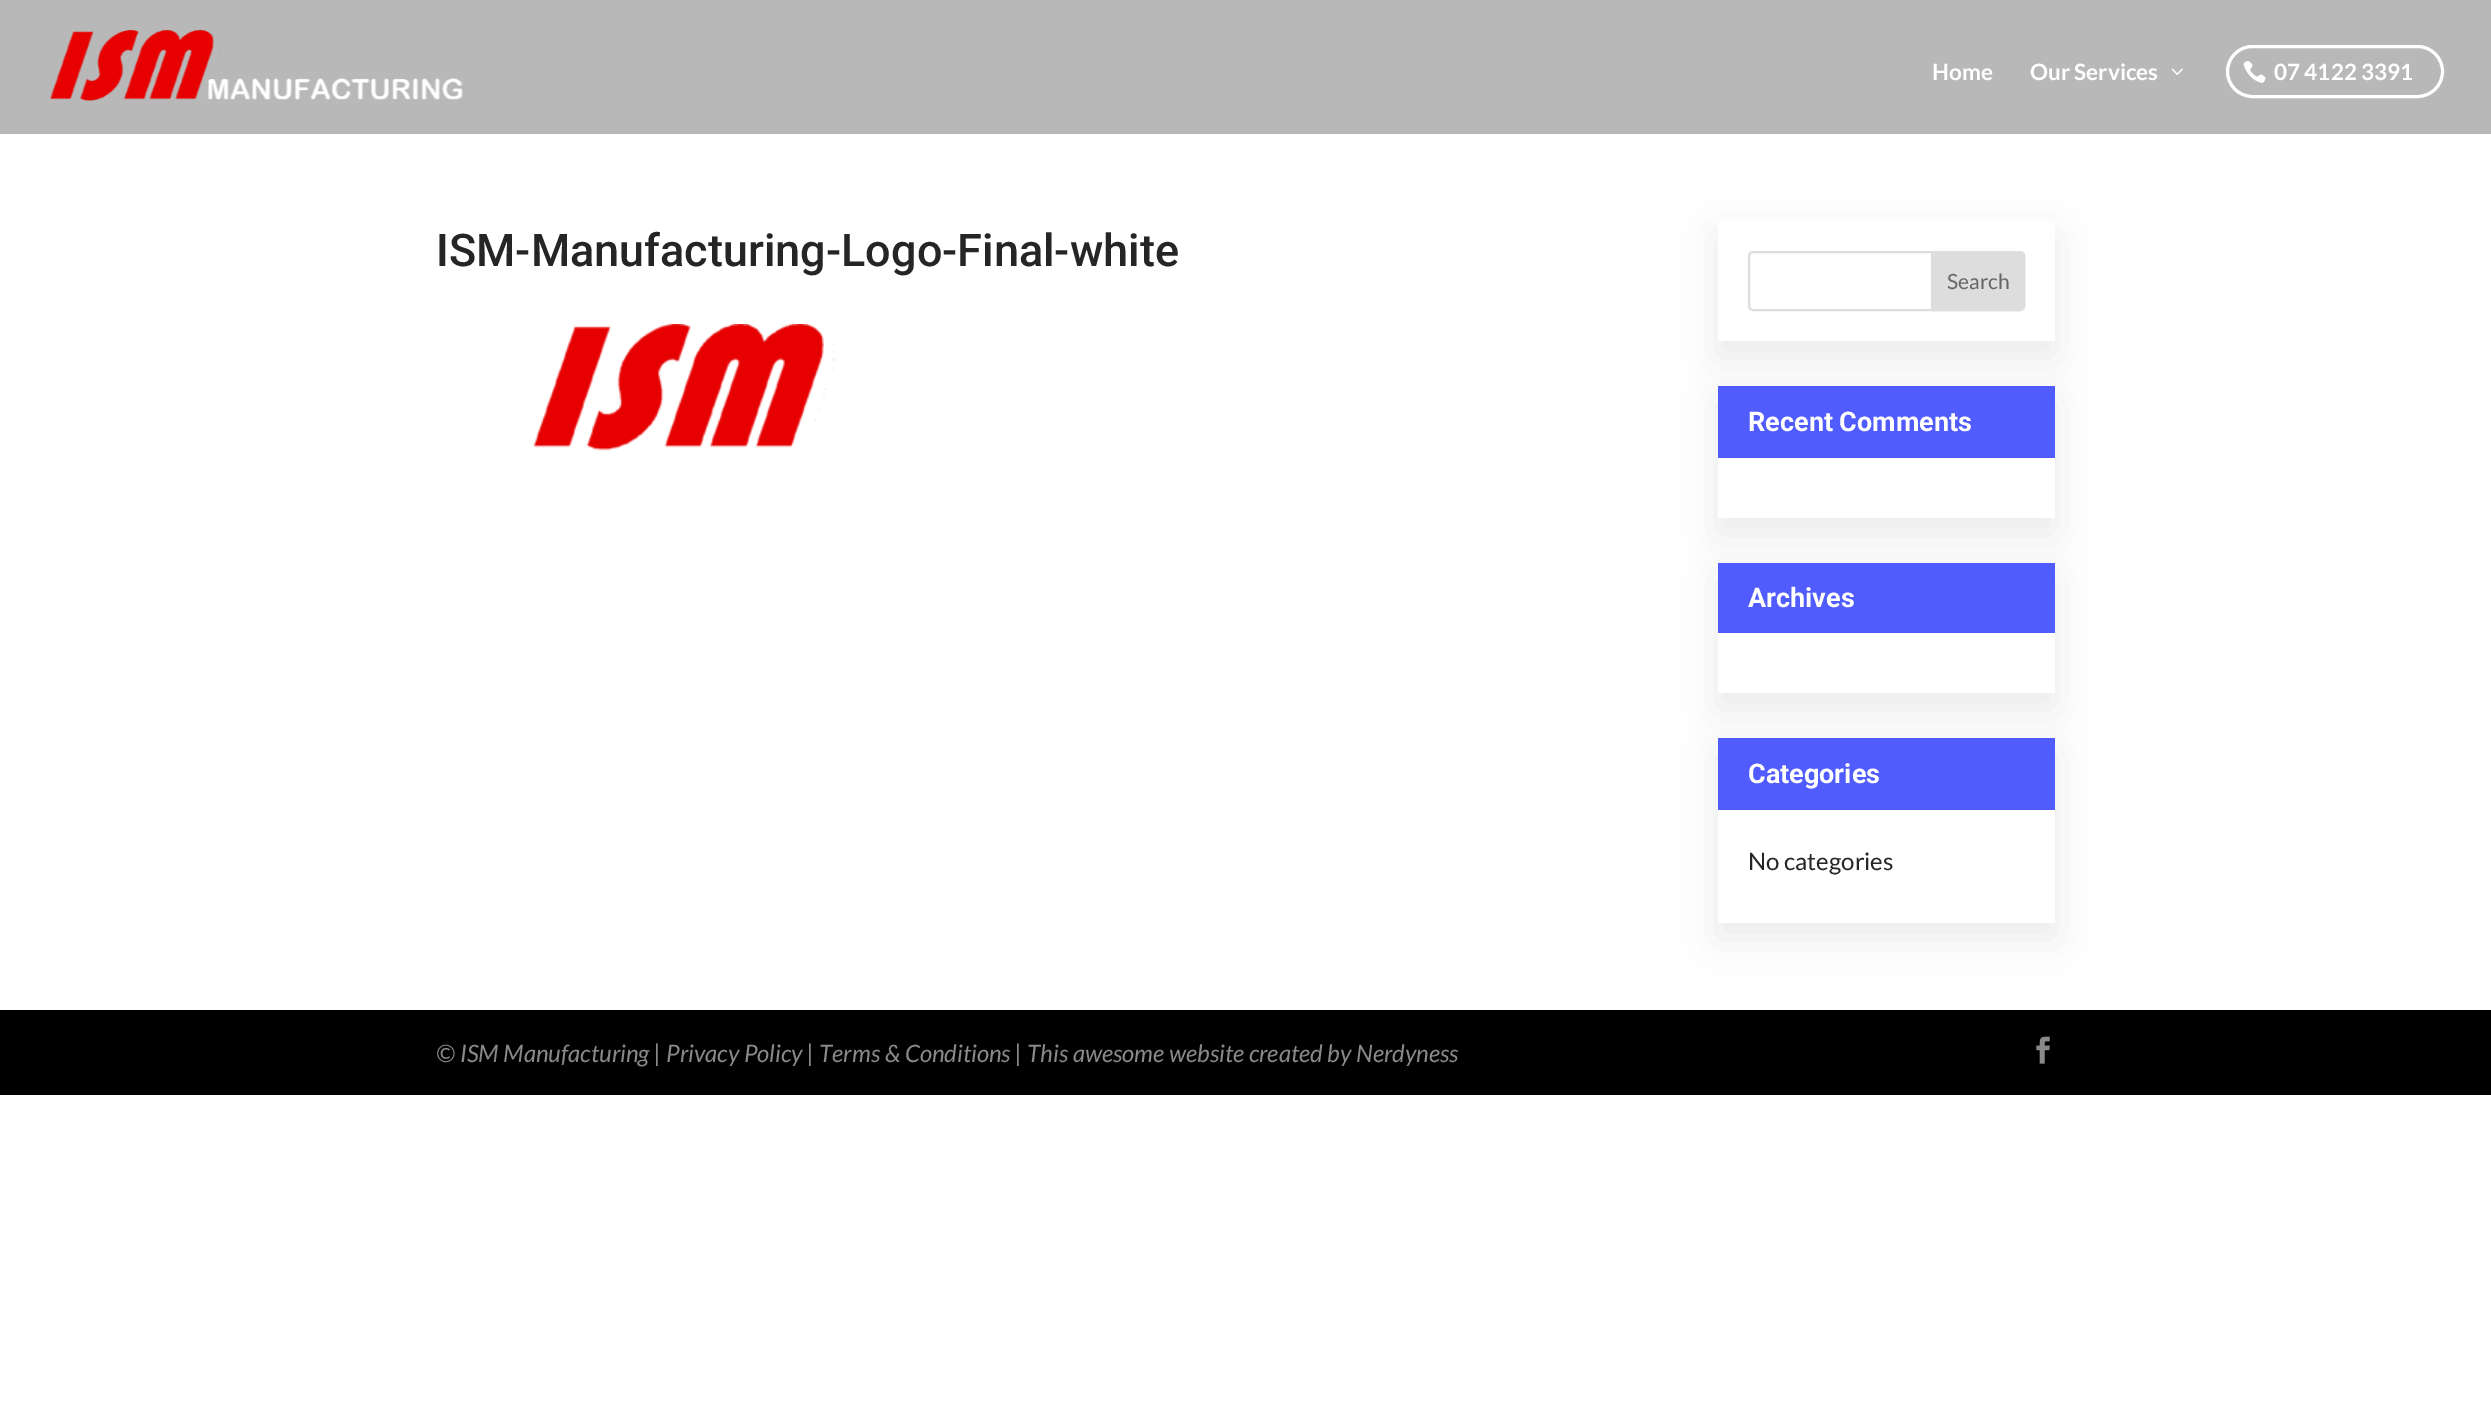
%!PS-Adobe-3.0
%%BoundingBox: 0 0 2491 1402
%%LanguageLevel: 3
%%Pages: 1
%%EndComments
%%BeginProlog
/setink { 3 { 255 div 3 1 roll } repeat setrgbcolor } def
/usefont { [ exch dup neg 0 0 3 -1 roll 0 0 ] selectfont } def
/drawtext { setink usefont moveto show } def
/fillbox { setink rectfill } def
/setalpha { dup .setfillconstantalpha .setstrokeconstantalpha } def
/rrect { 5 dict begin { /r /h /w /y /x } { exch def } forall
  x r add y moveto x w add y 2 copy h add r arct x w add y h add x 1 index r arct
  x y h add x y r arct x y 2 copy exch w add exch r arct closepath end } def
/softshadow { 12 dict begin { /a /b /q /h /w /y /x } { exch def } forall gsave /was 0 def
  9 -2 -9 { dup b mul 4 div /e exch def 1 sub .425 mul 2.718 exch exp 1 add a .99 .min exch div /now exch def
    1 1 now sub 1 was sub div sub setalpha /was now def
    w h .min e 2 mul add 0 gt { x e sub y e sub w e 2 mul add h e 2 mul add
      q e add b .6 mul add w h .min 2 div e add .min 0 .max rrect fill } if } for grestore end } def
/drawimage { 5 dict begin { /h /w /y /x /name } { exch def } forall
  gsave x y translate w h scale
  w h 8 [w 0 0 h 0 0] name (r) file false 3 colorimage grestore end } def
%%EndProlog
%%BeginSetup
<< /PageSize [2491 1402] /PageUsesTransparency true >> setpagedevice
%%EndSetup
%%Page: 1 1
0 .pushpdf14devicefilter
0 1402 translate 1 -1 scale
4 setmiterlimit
0 0 2491 1402 255 255 255 fillbox
0 0 2491 134 184 184 184 fillbox
(assets/img1.rgb) 50 30 413 71 drawimage
(Home) 1932 80 /Lato-Bold 22.5 255 255 255 drawtext
(Our Services) 2030 80 /Lato-Bold 22.5 255 255 255 drawtext
(assets/img2.rgb) 2171 68 12 7 drawimage
3 setlinewidth
2227.5 46.5 215 50 25 rrect stroke
(assets/img3.rgb) 2243 61 23 22 drawimage
(07 4122 3391) 2274 80 /Lato-Bold 22.5 255 255 255 drawtext
(ISM-Manufacturing-Logo-Final-white) 436 266 /Roboto-Medium 45 37 37 37 drawtext
(assets/img4.rgb) 533 324 303 127 drawimage
0 0 0 setink
1718 236 337 120 0 19 0.08 softshadow
1718 221 337 120 255 255 255 fillbox
221 221 221 setink
2 setlinewidth
1749 252 275 58 4 rrect stroke
1932 252 moveto 2020 252 lineto 2022 252 2024 254 2024 256 curveto 2024 306 lineto 2024 308 2022 310 2020 310 curveto 1932 310 lineto closepath gsave fill grestore
stroke
(Search) 1947 289 /Lato-Regular 21 102 102 102 drawtext
0 0 0 setink
1718 401 337 132 0 19 0.08 softshadow
1718 458 337 60 255 255 255 fillbox
1718 386 337 72 80 92 253 fillbox
(Recent Comments) 1748 431 /Roboto-Bold 27 255 255 255 drawtext
gsave
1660 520 moveto 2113 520 lineto 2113 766 lineto 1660 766 lineto closepath 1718 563 moveto 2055 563 lineto 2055 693 lineto 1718 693 lineto closepath eoclip newpath
0 0 0 setink
1718 578 337 130 0 19 0.08 softshadow
grestore
1718 563 337 70 80 92 253 fillbox
(Archives) 1748 607 /Roboto-Bold 27 255 255 255 drawtext
0 0 0 setink
1718 753 337 185 0 19 0.08 softshadow
1718 810 337 113 255 255 255 fillbox
1718 738 337 72 80 92 253 fillbox
(Categories) 1748 783 /Roboto-Bold 27 255 255 255 drawtext
(No categories) 1748 870 /Lato-Regular 24 37 37 37 drawtext
0 1010 2491 85 0 0 0 fillbox
(© ISM Manufacturing | Privacy Policy | Terms & Conditions | This awesome website created by Nerdyness) 436 1062 /Lato-Italic 24 137 137 137 drawtext
(assets/img5.rgb) 2036 1036 14 28 drawimage
.poppdf14devicefilter showpage
%%EOF
